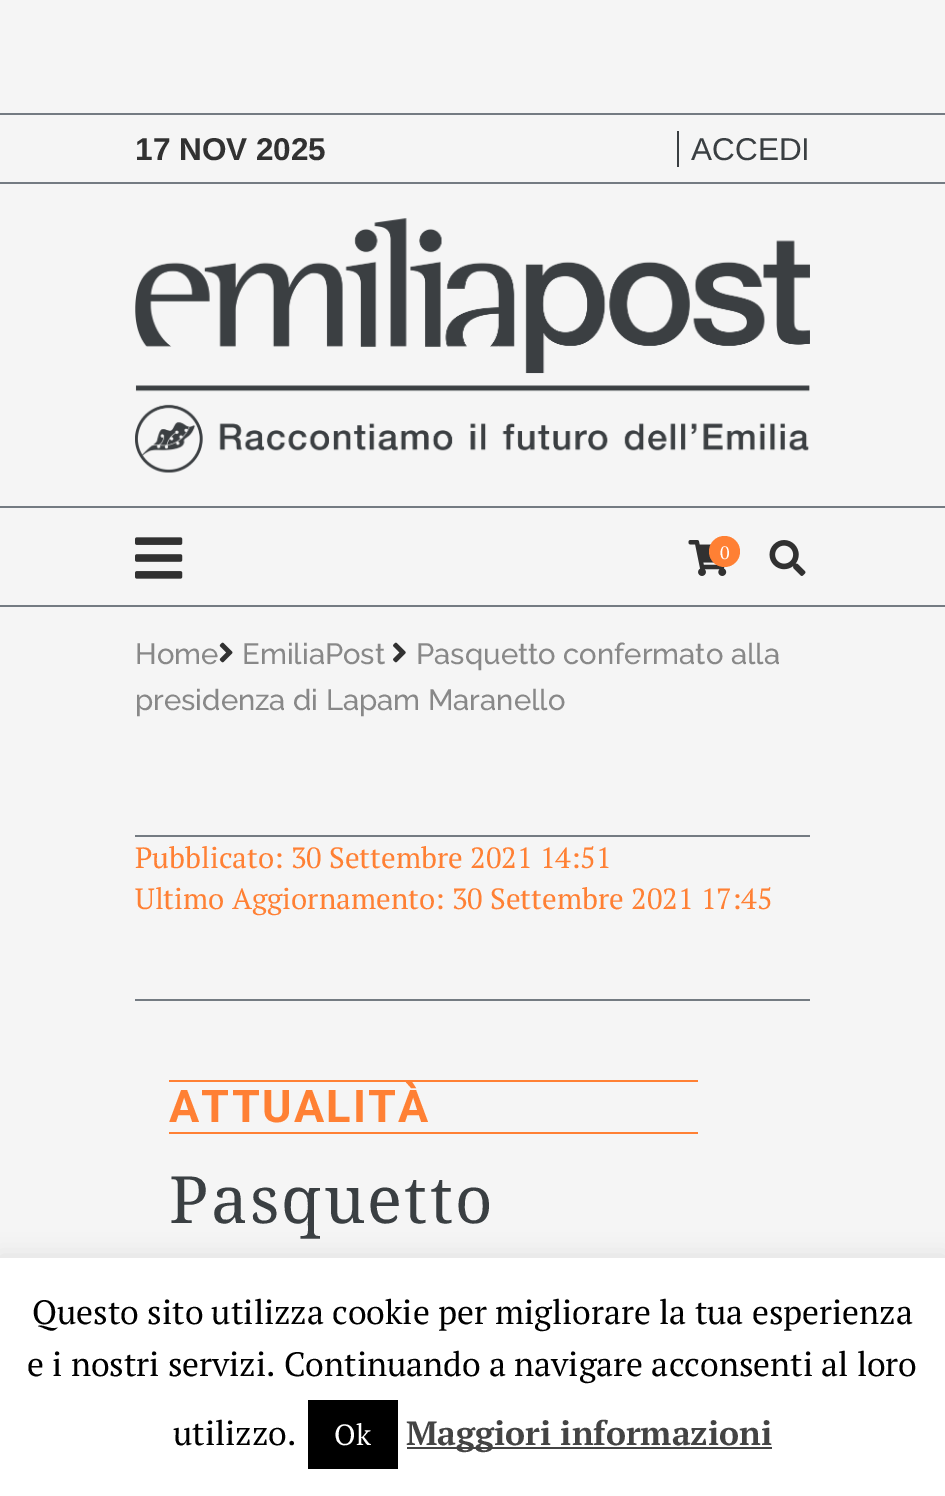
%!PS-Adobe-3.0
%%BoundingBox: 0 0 945 1496
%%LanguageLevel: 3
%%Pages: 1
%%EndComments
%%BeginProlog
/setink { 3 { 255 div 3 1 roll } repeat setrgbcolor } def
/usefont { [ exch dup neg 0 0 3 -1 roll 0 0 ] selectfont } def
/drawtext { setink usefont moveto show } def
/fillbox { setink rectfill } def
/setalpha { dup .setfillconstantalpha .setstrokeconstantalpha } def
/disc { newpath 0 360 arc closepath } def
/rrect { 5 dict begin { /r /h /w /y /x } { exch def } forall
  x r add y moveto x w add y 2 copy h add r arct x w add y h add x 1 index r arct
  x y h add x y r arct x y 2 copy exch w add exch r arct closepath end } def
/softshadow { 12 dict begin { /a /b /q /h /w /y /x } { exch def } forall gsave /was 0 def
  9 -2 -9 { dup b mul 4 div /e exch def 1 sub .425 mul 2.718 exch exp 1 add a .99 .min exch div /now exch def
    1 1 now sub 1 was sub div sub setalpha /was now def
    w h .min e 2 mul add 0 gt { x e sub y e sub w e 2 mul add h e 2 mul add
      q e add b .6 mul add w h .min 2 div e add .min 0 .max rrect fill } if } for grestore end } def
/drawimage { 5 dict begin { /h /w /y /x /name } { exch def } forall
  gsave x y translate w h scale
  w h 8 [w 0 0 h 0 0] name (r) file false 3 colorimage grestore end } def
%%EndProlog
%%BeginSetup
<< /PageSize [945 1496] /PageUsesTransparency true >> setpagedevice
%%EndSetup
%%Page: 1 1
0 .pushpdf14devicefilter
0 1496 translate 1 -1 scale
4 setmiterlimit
0 0 945 1496 245 245 245 fillbox
0 113 945 2 116 123 130 fillbox
0 182 945 2 116 123 130 fillbox
(17 NOV 2025) 135 160 /LiberationSans-Bold 31.5 49 49 49 drawtext
(ACCEDI) 691 160 /LiberationSans-Regular 31.5 58 63 66 drawtext
677 131 2 36 58 63 66 fillbox
(assets/img1.rgb) 135 218 675 255 drawimage
0 506 945 2 116 123 130 fillbox
0 605 945 2 116 123 130 fillbox
(assets/img2.rgb) 135 537 48 42 drawimage
(assets/img3.rgb) 688 540 39 36 drawimage
255 128 52 setink
724.5 551.5 15.5 disc fill
(0) 720 559 /PTSerif-Regular 18 255 255 255 drawtext
(assets/img4.rgb) 769 540 37 36 drawimage
(Home) 135 664 /Raleway-Medium 29.25 136 136 136 drawtext
(assets/img5.rgb) 219 642 14 21 drawimage
(EmiliaPost) 242 664 /Raleway-Medium 29.25 136 136 136 drawtext
(assets/img6.rgb) 393 642 13 21 drawimage
(Pasquetto confermato alla) 416 664 /Raleway-Medium 29.25 136 136 136 drawtext
(presidenza di Lapam Maranello) 135 710 /Raleway-Medium 29.25 136 136 136 drawtext
135 835 675 2 116 123 130 fillbox
135 999 675 2 116 123 130 fillbox
(Pubblicato: 30 Settembre 2021 14:51) 135 868 /PTSerif-Regular 29.25 255 128 52 drawtext
(Ultimo Aggiornamento: 30 Settembre 2021 17:45) 135 909 /PTSerif-Regular 29.25 255 128 52 drawtext
169 1080 529 2 255 128 52 fillbox
169 1132 529 2 255 128 52 fillbox
/Roboto-Bold 45 usefont
169 1122 moveto 2.25 0 (ATTUALITÀ) ashow
/DroidSerif-Regular 65.25 usefont
58 63 66 setink
169 1223 moveto 2.25 0 (Pasquetto) ashow
172 171 171 setink
0 1256 945 238 0 11 0.3 softshadow
0 1258 945 238 255 255 255 fillbox
(Questo sito utilizza cookie per migliorare la tua esperienza) 32 1324 /PTSerif-Regular 33.75 0 0 0 drawtext
(e i nostri servizi. Continuando a navigare acconsenti al loro) 27 1376 /PTSerif-Regular 33.75 0 0 0 drawtext
(utilizzo.) 173 1445 /PTSerif-Regular 33.75 0 0 0 drawtext
308 1400 90 69 0 0 0 fillbox
(Ok) 334 1445 /PTSerif-Regular 29.25 255 255 255 drawtext
407 1447 365 2 68 68 68 fillbox
(Maggiori informazioni) 406 1445 /PTSerif-Bold 33.75 68 68 68 drawtext
.poppdf14devicefilter showpage
%%EOF
